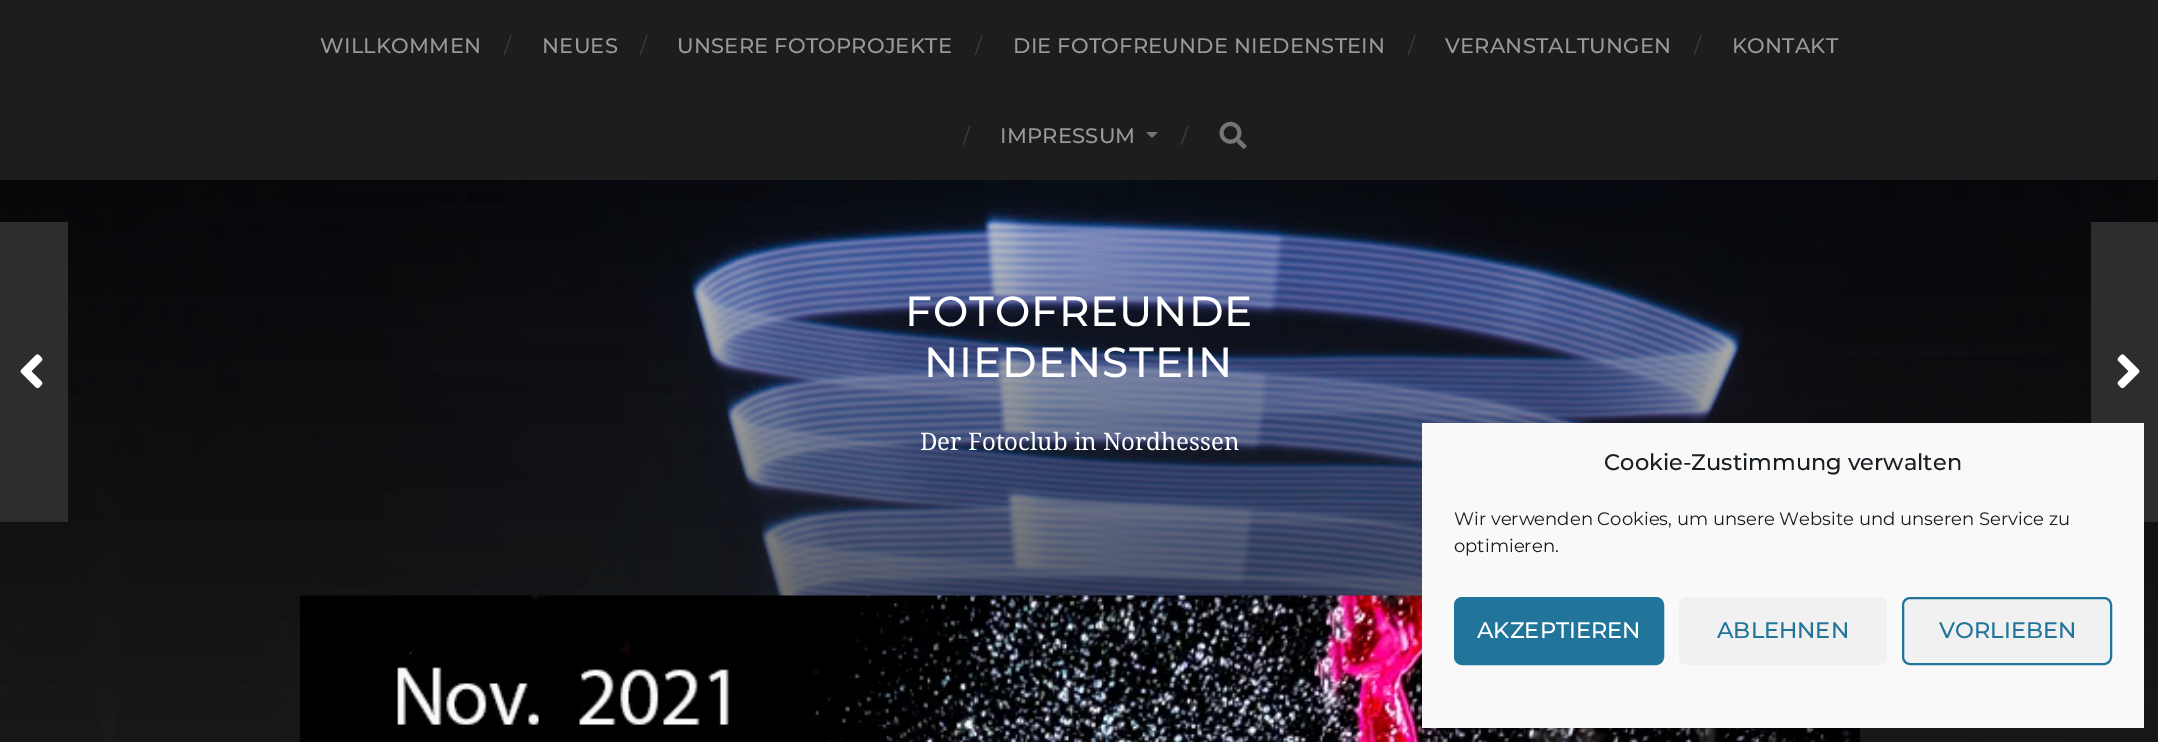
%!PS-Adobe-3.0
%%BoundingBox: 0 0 2158 742
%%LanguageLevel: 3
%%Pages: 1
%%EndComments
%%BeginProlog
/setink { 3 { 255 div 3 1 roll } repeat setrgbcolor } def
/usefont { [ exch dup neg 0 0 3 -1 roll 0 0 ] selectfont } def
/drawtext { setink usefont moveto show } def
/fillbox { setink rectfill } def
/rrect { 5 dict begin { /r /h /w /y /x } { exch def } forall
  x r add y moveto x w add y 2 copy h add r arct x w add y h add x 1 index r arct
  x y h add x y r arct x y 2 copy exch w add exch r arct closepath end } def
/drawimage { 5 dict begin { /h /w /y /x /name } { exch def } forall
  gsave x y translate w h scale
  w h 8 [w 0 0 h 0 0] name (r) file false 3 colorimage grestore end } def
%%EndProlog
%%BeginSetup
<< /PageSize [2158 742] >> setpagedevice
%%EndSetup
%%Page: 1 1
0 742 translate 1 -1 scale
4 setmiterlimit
0 0 2158 742 29 29 29 fillbox
/Montserrat-Thin 21 usefont
153 153 153 setink
320 53 moveto 0.2 0 (WILLKOMMEN) ashow
(/) 504 53 /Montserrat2-Thin 21 61 61 61 drawtext
/Montserrat-Thin 21 usefont
153 153 153 setink
542 53 moveto 0.2 0 (NEUES) ashow
(/) 640 53 /Montserrat2-Thin 21 61 61 61 drawtext
/Montserrat-Thin 21 usefont
153 153 153 setink
677 53 moveto 0.2 0 (UNSERE FOTOPROJEKTE) ashow
(/) 975 53 /Montserrat2-Thin 21 61 61 61 drawtext
/Montserrat-Thin 21 usefont
153 153 153 setink
1013 53 moveto 0.2 0 (DIE FOTOFREUNDE NIEDENSTEIN) ashow
(/) 1408 53 /Montserrat2-Thin 21 61 61 61 drawtext
/Montserrat-Thin 21 usefont
153 153 153 setink
1445 53 moveto 0.2 0 (VERANSTALTUNGEN) ashow
(/) 1694 53 /Montserrat2-Thin 21 61 61 61 drawtext
/Montserrat-Thin 21 usefont
153 153 153 setink
1732 53 moveto 0.2 0 (KONTAKT) ashow
(/) 963 143 /Montserrat2-Thin 21 61 61 61 drawtext
/Montserrat-Thin 21 usefont
153 153 153 setink
1000 143 moveto 0.2 0 (IMPRESSUM) ashow
117 117 117 setink
1146 132 moveto 1158 132 lineto 1152 138 lineto closepath fill
(/) 1181 143 /Montserrat2-Thin 21 61 61 61 drawtext
(assets/img1.rgb) 1219 121 28 28 drawimage
(assets/img2.rgb) 0 180 2158 562 drawimage
0 222 68 300 45 45 45 fillbox
(assets/img3.rgb) 20 354 23 35 drawimage
2091 222 67 300 45 45 45 fillbox
(assets/img4.rgb) 2117 354 23 35 drawimage
(assets/img5.rgb) 300 595 1560 147 drawimage
/Montserrat-Thin 42 usefont
255 255 255 setink
905 326 moveto 1 0 (FOTOFREUNDE) ashow
924 377 moveto 1 0 (NIEDENSTEIN) ashow
(Der Fotoclub in Nordhessen) 920 450 /DroidSerif-Regular 24 255 255 255 drawtext
1422 423 722 305 249 249 249 fillbox
(Cookie-Zustimmung verwalten) 1604 470 /Montserrat-Thin 22.5 25 30 35 drawtext
(Wir verwenden Cookies, um unsere Website und unseren Service zu) 1454 525 /Montserrat2-Thin 18 25 30 35 drawtext
(optimieren.) 1454 552 /Montserrat2-Thin 18 25 30 35 drawtext
33 117 155 setink
1455 598 208 66 7 rrect gsave fill grestore
2 setlinewidth
stroke
(AKZEPTIEREN) 1477 638 /Montserrat-Thin 22.5 255 255 255 drawtext
241 241 241 setink
1679 597 208 68 8 rrect fill
(ABLEHNEN) 1717 638 /Montserrat-Thin 22.5 33 117 155 drawtext
241 241 241 setink
1903 598 208 66 7 rrect gsave fill grestore
33 117 155 setink
stroke
(VORLIEBEN) 1939 638 /Montserrat-Thin 22.5 33 117 155 drawtext
showpage
%%EOF
